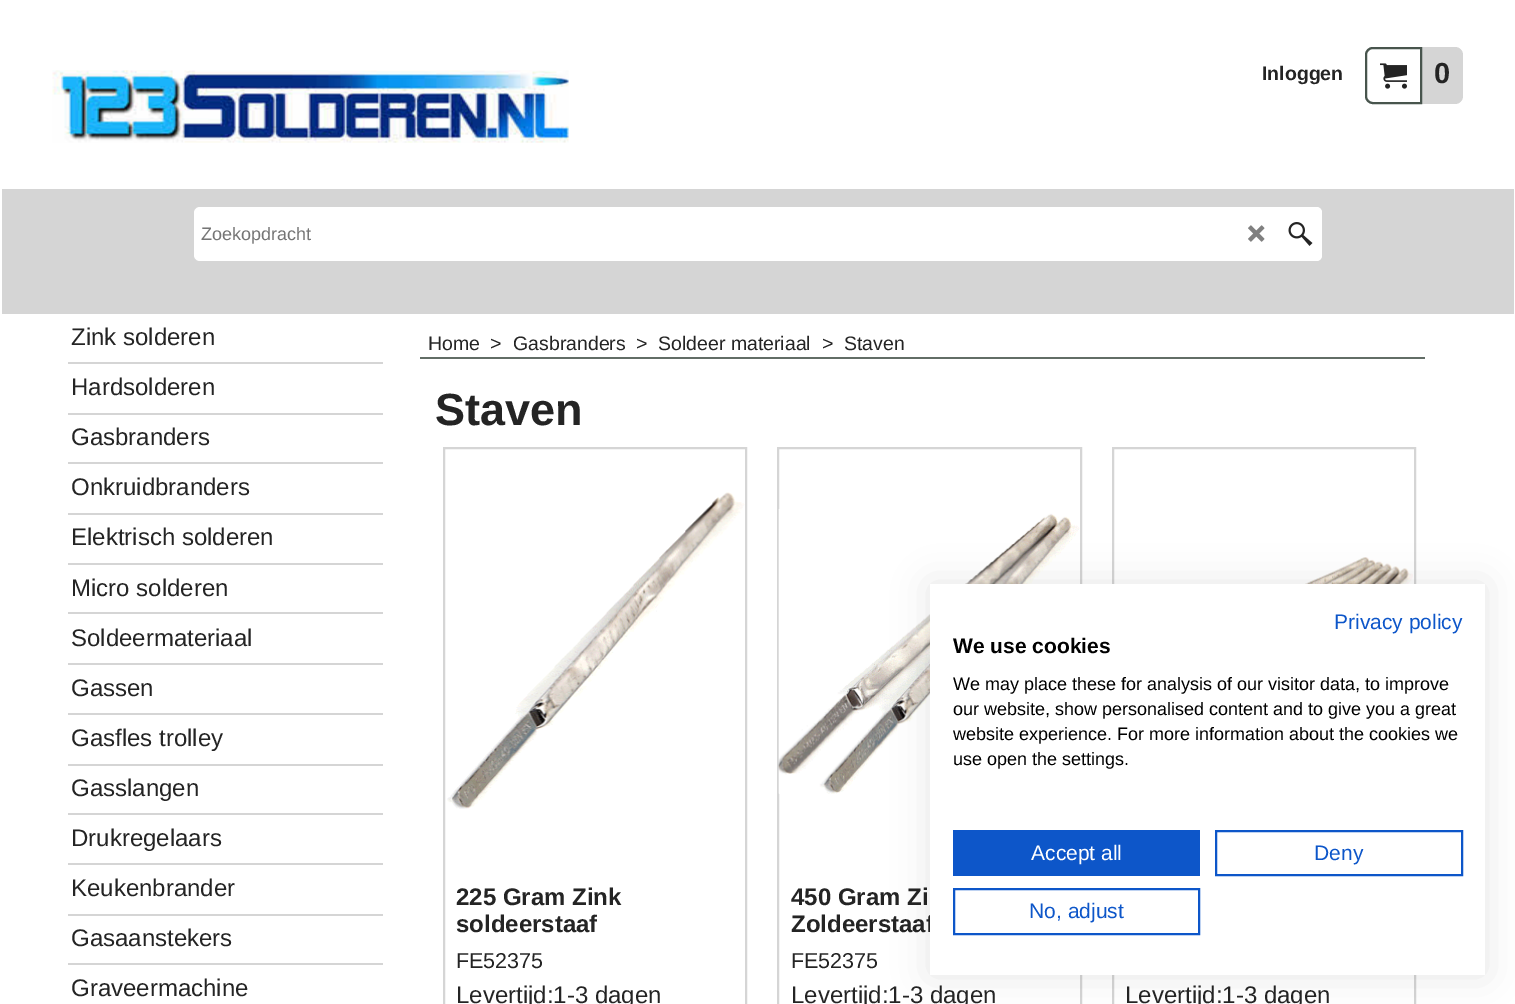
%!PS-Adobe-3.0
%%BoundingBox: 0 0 1515 1004
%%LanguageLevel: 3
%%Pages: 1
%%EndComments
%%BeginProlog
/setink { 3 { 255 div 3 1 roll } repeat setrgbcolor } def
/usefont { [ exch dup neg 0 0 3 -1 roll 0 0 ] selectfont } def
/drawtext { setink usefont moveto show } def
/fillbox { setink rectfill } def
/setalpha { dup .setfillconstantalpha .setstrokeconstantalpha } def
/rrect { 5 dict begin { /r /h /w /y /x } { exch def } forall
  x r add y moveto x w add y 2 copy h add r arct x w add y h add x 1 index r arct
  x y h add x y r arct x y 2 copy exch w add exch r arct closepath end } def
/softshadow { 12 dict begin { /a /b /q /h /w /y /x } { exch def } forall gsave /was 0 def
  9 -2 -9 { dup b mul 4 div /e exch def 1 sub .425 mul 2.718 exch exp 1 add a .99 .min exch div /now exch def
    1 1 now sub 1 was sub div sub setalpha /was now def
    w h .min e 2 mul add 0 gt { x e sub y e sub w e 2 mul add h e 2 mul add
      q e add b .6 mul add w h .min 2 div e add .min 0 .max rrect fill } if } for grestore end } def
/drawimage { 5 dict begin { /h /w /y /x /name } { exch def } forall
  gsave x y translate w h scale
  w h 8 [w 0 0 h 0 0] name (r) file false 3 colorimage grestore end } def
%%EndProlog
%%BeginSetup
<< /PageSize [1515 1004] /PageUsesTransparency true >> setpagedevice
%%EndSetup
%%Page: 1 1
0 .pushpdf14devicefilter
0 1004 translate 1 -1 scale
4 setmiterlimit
0 0 1515 1004 255 255 255 fillbox
(assets/img1.rgb) 52 70 517 73 drawimage
(Inloggen) 1262 80 /LiberationSans-Bold 19.5 36 36 36 drawtext
213 213 213 setink
1365 47 98 57 8 rrect fill
255 255 255 setink
1373 48 moveto 1421 48 lineto 1421 103 lineto 1373 103 lineto 1369 103 1366 100 1366 96 curveto 1366 55 lineto 1366 51 1369 48 1373 48 curveto closepath gsave fill grestore
72 85 77 setink
2 setlinewidth
stroke
(assets/img2.rgb) 1380 63 27 26 drawimage
(0) 1434 83 /LiberationSans-Bold 29 36 36 36 drawtext
2 189 1512 125 213 213 213 fillbox
255 255 255 setink
194 207 1128 54 6 rrect fill
(Zoekopdracht) 201 240 /LiberationSans-Regular 18 117 117 117 drawtext
(assets/img3.rgb) 1248 225 17 17 drawimage
255 255 255 setink
1278 207 moveto 1316 207 lineto 1319.5 207 1322 209.5 1322 213 curveto 1322 255 lineto 1322 258.5 1319.5 261 1316 261 curveto 1278 261 lineto closepath fill
(assets/img4.rgb) 1288 222 25 24 drawimage
68 362 315 2 213 213 213 fillbox
(Zink solderen) 71 345 /LiberationSans-Regular 24 36 36 36 drawtext
68 413 315 2 213 213 213 fillbox
(Hardsolderen) 71 395 /LiberationSans-Regular 24 36 36 36 drawtext
68 462 315 2 213 213 213 fillbox
(Gasbranders) 71 445 /LiberationSans-Regular 24 36 36 36 drawtext
68 513 315 2 213 213 213 fillbox
(Onkruidbranders) 71 495 /LiberationSans-Regular 24 36 36 36 drawtext
68 563 315 2 213 213 213 fillbox
(Elektrisch solderen) 71 545 /LiberationSans-Regular 24 36 36 36 drawtext
68 612 315 2 213 213 213 fillbox
(Micro solderen) 71 596 /LiberationSans-Regular 24 36 36 36 drawtext
68 663 315 2 213 213 213 fillbox
(Soldeermateriaal) 71 646 /LiberationSans-Regular 24 36 36 36 drawtext
68 713 315 2 213 213 213 fillbox
(Gassen) 71 696 /LiberationSans-Regular 24 36 36 36 drawtext
68 764 315 2 213 213 213 fillbox
(Gasfles trolley) 71 746 /LiberationSans-Regular 24 36 36 36 drawtext
68 813 315 2 213 213 213 fillbox
(Gasslangen) 71 796 /LiberationSans-Regular 24 36 36 36 drawtext
68 863 315 2 213 213 213 fillbox
(Drukregelaars) 71 846 /LiberationSans-Regular 24 36 36 36 drawtext
68 914 315 2 213 213 213 fillbox
(Keukenbrander) 71 896 /LiberationSans-Regular 24 36 36 36 drawtext
68 963 315 2 213 213 213 fillbox
(Gasaanstekers) 71 946 /LiberationSans-Regular 24 36 36 36 drawtext
(Graveermachine) 71 996 /LiberationSans-Regular 24 36 36 36 drawtext
420 357 1005 2 98 109 102 fillbox
(Home) 428 350 /LiberationSans-Regular 19.5 36 36 36 drawtext
(>) 490 350 /LiberationSans-Regular 19.5 36 36 36 drawtext
(Gasbranders) 513 350 /LiberationSans-Regular 19.5 36 36 36 drawtext
(>) 636 350 /LiberationSans-Regular 19.5 36 36 36 drawtext
(Soldeer materiaal) 658 350 /LiberationSans-Regular 19.5 36 36 36 drawtext
(>) 822 350 /LiberationSans-Regular 19.5 36 36 36 drawtext
(Staven) 844 350 /LiberationSans-Regular 19.5 36 36 36 drawtext
(Staven) 435 425 /LiberationSans-Bold 45 36 36 36 drawtext
213 213 213 setink
444 448 302 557 rectstroke
(assets/img5.rgb) 447 492 298 317 drawimage
(225 Gram Zink) 456 905 /LiberationSans-Bold 24 36 36 36 drawtext
(soldeerstaaf) 456 932 /LiberationSans-Bold 24 36 36 36 drawtext
(FE52375) 456 968 /LiberationSans-Regular 21.5 36 36 36 drawtext
(Levertijd:1-3 dagen) 456 1003 /LiberationSans-Regular 24 36 36 36 drawtext
213 213 213 setink
778 448 303 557 rectstroke
(assets/img6.rgb) 778 509 302 285 drawimage
gsave
791 876 277 69 rectclip
(450 Gram Zi) 791 905 /LiberationSans-Bold 24 36 36 36 drawtext
grestore
(Zoldeerstaaf) 791 932 /LiberationSans-Bold 24 36 36 36 drawtext
(FE52375) 791 968 /LiberationSans-Regular 21.5 36 36 36 drawtext
(Levertijd:1-3 dagen) 791 1003 /LiberationSans-Regular 24 36 36 36 drawtext
213 213 213 setink
1113 448 302 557 rectstroke
(assets/img7.rgb) 1305 557 108 27 drawimage
(Levertijd:1-3 dagen) 1125 1003 /LiberationSans-Regular 24 36 36 36 drawtext
0 0 0 setink
930 584 555 391 0 18 0.1 softshadow
930 584 555 391 255 255 255 fillbox
(Privacy policy) 1334 629 /LiberationSans-Regular 21 13 86 201 drawtext
(We use cookies) 953 653 /LiberationSans-Bold 21 0 0 0 drawtext
(We may place these for analysis of our visitor data, to improve) 953 690 /LiberationSans-Regular 18 0 0 0 drawtext
(our website, show personalised content and to give you a great) 953 715 /LiberationSans-Regular 18 0 0 0 drawtext
(website experience. For more information about the cookies we) 953 740 /LiberationSans-Regular 18 0 0 0 drawtext
(use open the settings.) 953 765 /LiberationSans-Regular 18 0 0 0 drawtext
953 830 247 46 13 86 201 fillbox
(Accept all) 1031 860 /LiberationSans-Regular 21 255 255 255 drawtext
13 86 201 setink
1216 831 246 44 rectstroke
(Deny) 1314 860 /LiberationSans-Regular 21 13 86 201 drawtext
954 889 245 45 rectstroke
(No, adjust) 1029 918 /LiberationSans-Regular 21 13 86 201 drawtext
.poppdf14devicefilter showpage
%%EOF
